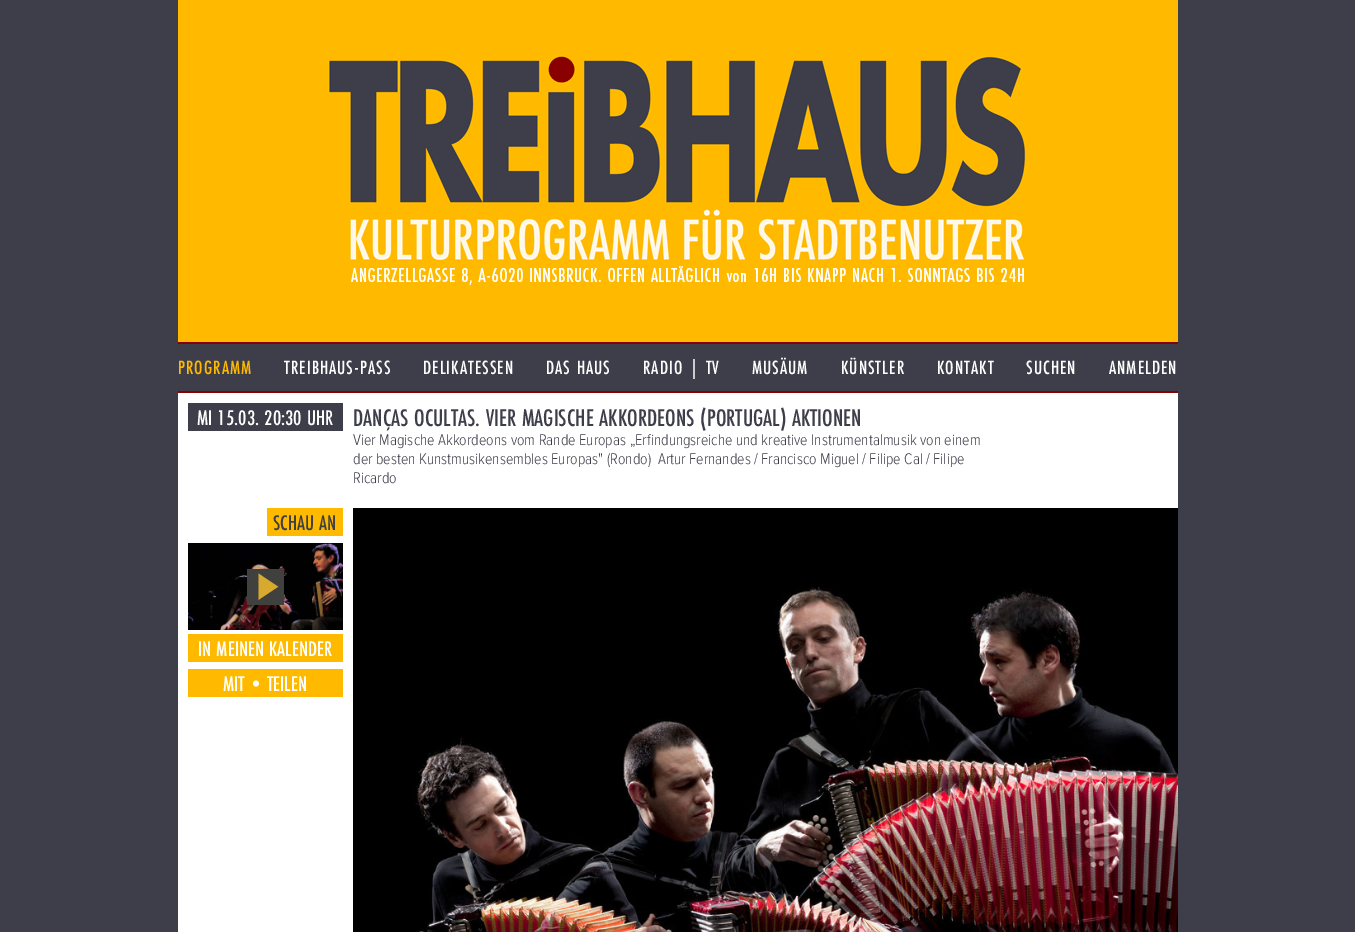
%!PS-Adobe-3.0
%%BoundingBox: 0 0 1355 932
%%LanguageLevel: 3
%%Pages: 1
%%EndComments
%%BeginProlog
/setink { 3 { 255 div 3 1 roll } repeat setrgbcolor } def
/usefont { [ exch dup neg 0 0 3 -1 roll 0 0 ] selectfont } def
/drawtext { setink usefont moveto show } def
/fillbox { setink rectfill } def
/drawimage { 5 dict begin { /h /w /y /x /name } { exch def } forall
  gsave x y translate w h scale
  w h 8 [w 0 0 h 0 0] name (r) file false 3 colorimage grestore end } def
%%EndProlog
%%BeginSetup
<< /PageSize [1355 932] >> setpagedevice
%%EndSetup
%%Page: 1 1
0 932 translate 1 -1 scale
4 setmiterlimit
0 0 1355 932 62 62 74 fillbox
178 0 1000 342 255 186 0 fillbox
(assets/img1.rgb) 328 55 698 230 drawimage
178 342 1000 2 137 0 0 fillbox
178 391 1000 2 137 0 0 fillbox
/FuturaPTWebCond-Medium 20 usefont
255 186 0 setink
178 374 moveto 1 0 (PROGRAMM) ashow
255 255 255 setink
284 374 moveto 1 0 (TREIBHAUS-PASS) ashow
423 374 moveto 1 0 (DELIKATESSEN) ashow
546 374 moveto 1 0 (DAS HAUS) ashow
643 374 moveto 1 0 (RADIO | TV) ashow
752 374 moveto 1 0 (MUSÄUM) ashow
841 374 moveto 1 0 (KÜNSTLER) ashow
937 374 moveto 1 0 (KONTAKT) ashow
1026 374 moveto 1 0 (SUCHEN) ashow
1109 374 moveto 1 0 (ANMELDEN) ashow
178 393 1000 539 255 255 255 fillbox
188 403 155 28 62 62 74 fillbox
(MI 15.03. 20:30 UHR) 197 425 /FuturaPTWebCond-Medium 22 255 255 255 drawtext
(DANÇAS OCULTAS. VIER MAGISCHE AKKORDEONS \(PORTUGAL\) AKTIONEN) 353 426 /FuturaPTWebCond-Medium 25 62 62 74 drawtext
(Vier Magische Akkordeons vom Rande Europas „Erfindungsreiche und kreative Instrumentalmusik von einem) 353 445 /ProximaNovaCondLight-Light 16 62 62 74 drawtext
(der besten Kunstmusikensembles Europas" \(Rondo\)  Artur Fernandes / Francisco Miguel / Filipe Cal / Filipe) 353 464 /ProximaNovaCondLight-Light 16 62 62 74 drawtext
(Ricardo) 353 483 /ProximaNovaCondLight-Light 16 62 62 74 drawtext
267 508 76 28 255 186 0 fillbox
(SCHAU AN) 273 530 /FuturaPTWebCond-Medium 22 64 64 64 drawtext
(assets/img2.rgb) 188 543 155 87 drawimage
(assets/img3.rgb) 247 569 37 36 drawimage
188 634 155 28 255 186 0 fillbox
(IN MEINEN KALENDER) 198 656 /FuturaPTWebCond-Medium 22 255 255 255 drawtext
188 669 155 28 255 186 0 fillbox
(MIT•TEILEN) 223 691 /FuturaPTWebCond-Medium 22 255 255 255 drawtext
(assets/img4.rgb) 353 508 825 424 drawimage
showpage
%%EOF
